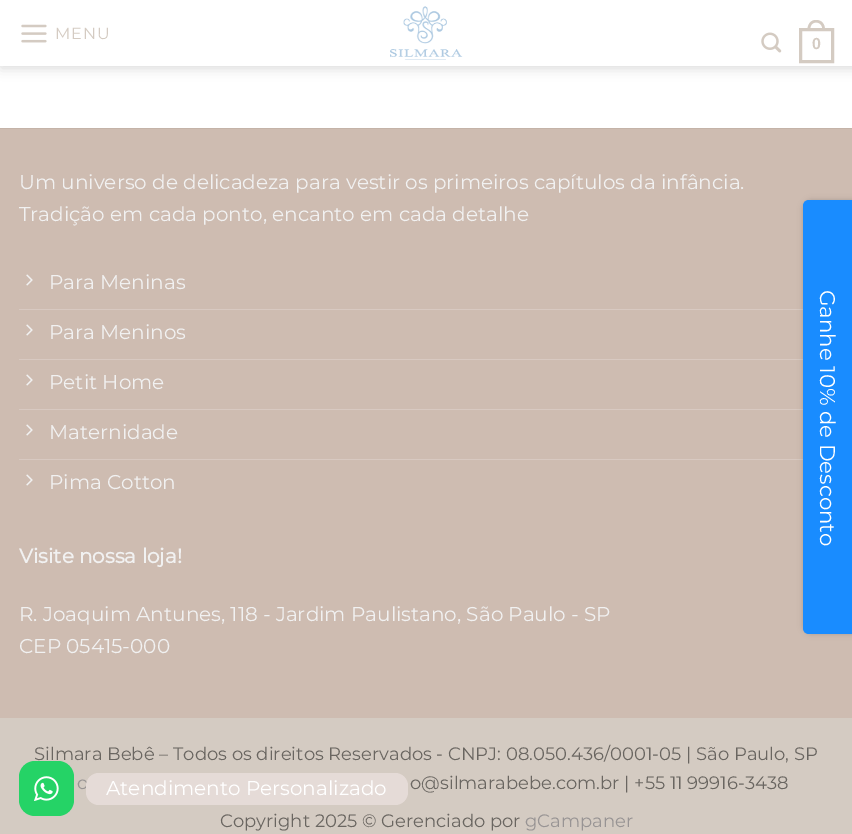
%!PS-Adobe-3.0
%%BoundingBox: 0 0 852 834
%%LanguageLevel: 3
%%Pages: 1
%%EndComments
%%BeginProlog
/setink { 3 { 255 div 3 1 roll } repeat setrgbcolor } def
/usefont { [ exch dup neg 0 0 3 -1 roll 0 0 ] selectfont } def
/drawtext { setink usefont moveto show } def
/fillbox { setink rectfill } def
/setalpha { dup .setfillconstantalpha .setstrokeconstantalpha } def
/rrect { 5 dict begin { /r /h /w /y /x } { exch def } forall
  x r add y moveto x w add y 2 copy h add r arct x w add y h add x 1 index r arct
  x y h add x y r arct x y 2 copy exch w add exch r arct closepath end } def
/softshadow { 12 dict begin { /a /b /q /h /w /y /x } { exch def } forall gsave /was 0 def
  9 -2 -9 { dup b mul 4 div /e exch def 1 sub .425 mul 2.718 exch exp 1 add a .99 .min exch div /now exch def
    1 1 now sub 1 was sub div sub setalpha /was now def
    w h .min e 2 mul add 0 gt { x e sub y e sub w e 2 mul add h e 2 mul add
      q e add b .6 mul add w h .min 2 div e add .min 0 .max rrect fill } if } for grestore end } def
/drawimage { 5 dict begin { /h /w /y /x /name } { exch def } forall
  gsave x y translate w h scale
  w h 8 [w 0 0 h 0 0] name (r) file false 3 colorimage grestore end } def
%%EndProlog
%%BeginSetup
<< /PageSize [852 834] /PageUsesTransparency true >> setpagedevice
%%EndSetup
%%Page: 1 1
0 .pushpdf14devicefilter
0 834 translate 1 -1 scale
4 setmiterlimit
0 0 852 834 255 255 255 fillbox
0 0 0 setink
1 1 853 67 0 6 0.15 softshadow
0 0 852 66 255 255 255 fillbox
(assets/img1.rgb) 21 24 26 19 drawimage
/Montserrat-Thin 16 usefont
212 203 194 setink
55 39 moveto 1 0 (MENU) ashow
(assets/img2.rgb) 390 6 73 54 drawimage
(assets/img3.rgb) 761 32 21 21 drawimage
3 setlinewidth
800.5 29.5 32 32 rectstroke
816 20 moveto 822 20 825 24.5 825 30 curveto 807.5 30 lineto 807.5 24.5 810.5 20 816 20 curveto closepath 816 22.5 moveto 820.5 22.5 822.5 26 822.5 30 curveto 810 30 lineto 810 26 812 22.5 816 22.5 curveto closepath eofill
(0) 812 49 /LiberationSans-Bold 16 212 203 194 drawtext
0 129 852 589 206 188 177 fillbox
0 128 852 1 196 179 168 fillbox
(Um universo de delicadeza para vestir os primeiros capítulos da infância.) 19 189 /Montserrat-Thin 20 241 241 241 drawtext
(Tradição em cada ponto, encanto em cada detalhe) 19 221 /Montserrat-Thin 20 241 241 241 drawtext
19 309 784 1 216 201 193 fillbox
(assets/img4.rgb) 26 274 7 12 drawimage
(Para Meninas) 49 289 /Montserrat-Thin 20 241 241 241 drawtext
19 359 784 1 216 201 193 fillbox
(assets/img4.rgb) 26 324 7 12 drawimage
(Para Meninos) 49 339 /Montserrat-Thin 20 241 241 241 drawtext
19 409 784 1 216 201 193 fillbox
(assets/img4.rgb) 26 374 7 12 drawimage
(Petit Home) 49 389 /Montserrat-Thin 20 241 241 241 drawtext
19 459 784 1 216 201 193 fillbox
(assets/img4.rgb) 26 424 7 12 drawimage
(Maternidade) 49 439 /Montserrat-Thin 20 241 241 241 drawtext
(assets/img4.rgb) 26 474 7 12 drawimage
(Pima Cotton) 49 489 /Montserrat-Thin 20 241 241 241 drawtext
(Visite nossa loja!) 19 563 /Montserrat-Bold 20 241 241 241 drawtext
(R. Joaquim Antunes, 118 - Jardim Paulistano, São Paulo - SP) 19 621 /Montserrat-Thin 20 241 241 241 drawtext
(CEP 05415-000) 19 653 /Montserrat-Thin 20 241 241 241 drawtext
0 718 852 116 212 203 194 fillbox
(Silmara Bebê – Todos os direitos Reservados - CNPJ: 08.050.436/0001-05 | São Paulo, SP) 34 760 /Montserrat-Thin 18 106 102 97 drawtext
(o) 77 789 /Montserrat-Thin 18 152 148 148 drawtext
(o@silmarabebe.com.br | +55 11 99916-3438) 410 789 /Montserrat-Thin 18 106 102 97 drawtext
(Copyright 2025 © Gerenciado por) 220 827 /Montserrat-Thin 18 106 102 97 drawtext
(gCampaner) 525 827 /Montserrat-Thin 18 152 148 148 drawtext
19 19 19 setink
803 200 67 434 9 3 0.2 softshadow
25 140 255 setink
809 200 moveto 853 200 lineto 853 634 lineto 809 634 lineto 805.5 634 803 631.5 803 628 curveto 803 206 lineto 803 202.5 805.5 200 809 200 curveto closepath fill
/Montserrat-Thin 21.25 usefont
255 255 255 setink
gsave 820 290 translate 90 rotate 0 0 moveto (Ganhe 10% de Desconto) show grestore
37 211 102 setink
19 761 55 55 16 rrect fill
(assets/img5.rgb) 34 776 25 25 drawimage
229 219 215 setink
86 773 322 32 13 rrect fill
(Atendimento Personalizado) 106 795 /Montserrat-Thin 20 255 255 255 drawtext
.poppdf14devicefilter showpage
%%EOF
